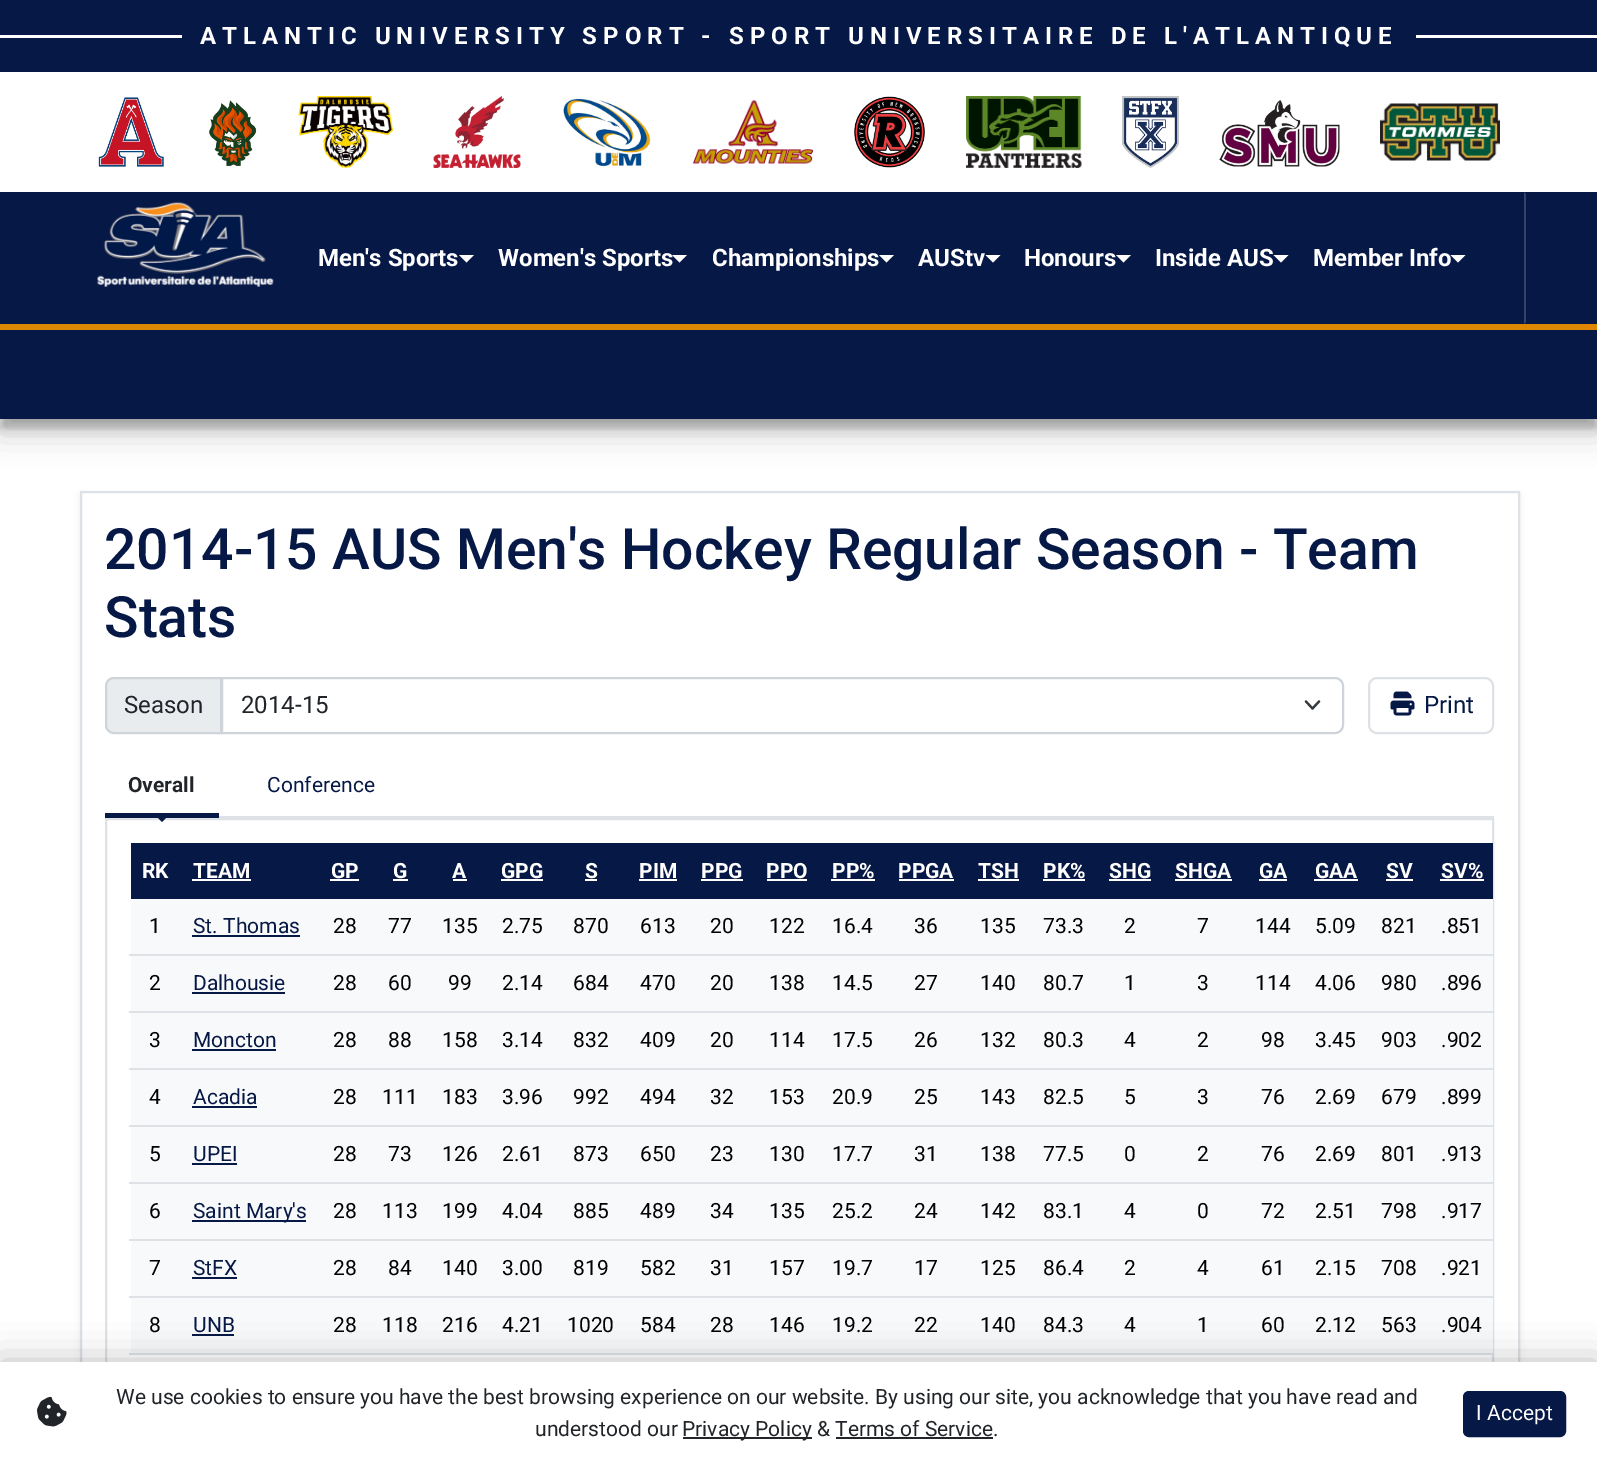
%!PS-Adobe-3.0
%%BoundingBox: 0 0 1597 1464
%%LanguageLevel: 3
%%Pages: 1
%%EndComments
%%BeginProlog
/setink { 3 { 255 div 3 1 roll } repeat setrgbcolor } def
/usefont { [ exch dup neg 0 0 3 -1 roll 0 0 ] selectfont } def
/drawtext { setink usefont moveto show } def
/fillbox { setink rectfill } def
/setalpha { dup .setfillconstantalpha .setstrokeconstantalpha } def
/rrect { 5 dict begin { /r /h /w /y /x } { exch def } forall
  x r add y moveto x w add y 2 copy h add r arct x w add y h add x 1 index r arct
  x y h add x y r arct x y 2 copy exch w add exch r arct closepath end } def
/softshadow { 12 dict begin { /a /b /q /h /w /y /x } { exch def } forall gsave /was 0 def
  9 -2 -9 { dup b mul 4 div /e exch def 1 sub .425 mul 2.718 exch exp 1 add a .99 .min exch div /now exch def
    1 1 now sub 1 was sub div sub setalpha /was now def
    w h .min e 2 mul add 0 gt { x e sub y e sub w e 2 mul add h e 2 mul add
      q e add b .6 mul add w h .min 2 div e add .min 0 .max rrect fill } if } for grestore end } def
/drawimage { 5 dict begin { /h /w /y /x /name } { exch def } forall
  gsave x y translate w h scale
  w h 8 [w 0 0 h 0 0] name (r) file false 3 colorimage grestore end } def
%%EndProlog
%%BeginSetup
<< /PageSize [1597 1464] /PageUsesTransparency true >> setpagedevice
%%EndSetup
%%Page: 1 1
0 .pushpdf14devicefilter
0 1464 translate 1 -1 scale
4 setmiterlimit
0 0 1597 1464 255 255 255 fillbox
0 0 1597 72 6 24 69 fillbox
0 35 1597 3 255 255 255 fillbox
182 35 1234 3 6 24 69 fillbox
/Roboto-Bold 24 usefont
255 255 255 setink
200 44 moveto 6 0 (ATLANTIC UNIVERSITY SPORT - SPORT UNIVERSITAIRE DE L'ATLANTIQUE) ashow
(assets/img1.rgb) 98 97 66 70 drawimage
(assets/img2.rgb) 209 100 48 67 drawimage
(assets/img3.rgb) 298 96 95 72 drawimage
(assets/img4.rgb) 433 96 88 72 drawimage
(assets/img5.rgb) 563 98 88 69 drawimage
(assets/img6.rgb) 693 100 120 64 drawimage
(assets/img7.rgb) 854 96 71 72 drawimage
(assets/img8.rgb) 966 96 116 72 drawimage
(assets/img9.rgb) 1122 96 57 72 drawimage
(assets/img10.rgb) 1219 100 121 67 drawimage
(assets/img11.rgb) 1380 103 120 58 drawimage
0 0 0 setink
0 345 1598 89 0 15 0.19 softshadow
0 192 1597 132 6 24 69 fillbox
0 0 0 setink
0 339 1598 89 0 4.5 0.23 softshadow
0 324 1597 6 222 135 3 fillbox
(assets/img12.rgb) 97 202 177 85 drawimage
(Men's Sports) 318 266 /Roboto-Bold 24 255 255 255 drawtext
459 255 moveto 474 255 lineto 466.5 262.5 lineto closepath fill
(Women's Sports) 498 266 /Roboto-Bold 24 255 255 255 drawtext
672 255 moveto 687 255 lineto 679.5 262.5 lineto closepath fill
(Championships) 712 266 /Roboto-Bold 24 255 255 255 drawtext
879 255 moveto 894 255 lineto 886.5 262.5 lineto closepath fill
(AUStv) 918 266 /Roboto-Bold 24 255 255 255 drawtext
985.5 255 moveto 1000.5 255 lineto 993 262.5 lineto closepath fill
(Honours) 1024 266 /Roboto-Bold 24 255 255 255 drawtext
1116 255 moveto 1131 255 lineto 1123.5 262.5 lineto closepath fill
(Inside AUS) 1155 266 /Roboto-Bold 24 255 255 255 drawtext
1273.5 255 moveto 1288.5 255 lineto 1281 262.5 lineto closepath fill
(Member Info) 1313 266 /Roboto-Bold 24 255 255 255 drawtext
1450.5 255 moveto 1465.5 255 lineto 1458 262.5 lineto closepath fill
52 67 103 setink
1524 324 moveto 1524 192 lineto 1526 194 lineto 1526 322 lineto closepath fill
0 330 1597 89 6 24 69 fillbox
0 0 0 setink
80 494 1440 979 0 3 0.07 softshadow
82 493 1436 869 255 255 255 fillbox
222 226 230 setink
2 setlinewidth
81 492 1438 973 rectstroke
(2014-15 AUS Men's Hockey Regular Season - Team) 104 569 /Roboto-Medium 57 6 24 69 drawtext
(Stats) 104 637 /Roboto-Medium 57 6 24 69 drawtext
233 236 239 setink
114 678 moveto 221 678 lineto 221 733 lineto 114 733 lineto 109.5 733 106 729.5 106 725 curveto 106 686 lineto 106 681.5 109.5 678 114 678 curveto closepath gsave fill grestore
206 212 218 setink
stroke
(Season) 124 713 /Roboto-Regular 24 33 37 41 drawtext
52 58 64 setink
2.2 setlinewidth
1 setlinecap
1 setlinejoin
1306 701.5 moveto 1312.5 708.5 lineto 1319 701.5 lineto stroke
206 212 218 setink
2 setlinewidth
0 setlinecap
0 setlinejoin
222 678 moveto 1335 678 lineto 1339.5 678 1343 681.5 1343 686 curveto 1343 725 lineto 1343 729.5 1339.5 733 1335 733 curveto 222 733 lineto closepath stroke
(2014-15) 241 713 /Roboto-Regular 24 33 37 41 drawtext
222 226 230 setink
1369 678 124 55 8 rrect stroke
(assets/img13.rgb) 1390 691 25 25 drawimage
(Print) 1424 713 /Roboto-Regular 24 6 24 69 drawtext
219 816 1275 2 222 226 230 fillbox
105 813 114 5 6 24 69 fillbox
(Overall) 128 792 /Roboto-Bold 21 33 37 41 drawtext
222 226 230 setink
106 819 1387 584 rectstroke
6 24 69 setink
153 813 moveto 171 813 lineto 162 822 lineto closepath fill
(Conference) 267 792 /Roboto-Regular 21 6 24 69 drawtext
131 843 1362 56 6 24 69 fillbox
(RK) 142 878 /Roboto-Bold 21 255 255 255 drawtext
(TEAM) 193 878 /Roboto-Bold 21 255 255 255 drawtext
192 879 59 2 255 255 255 fillbox
(GP) 331 878 /Roboto-Bold 21 255 255 255 drawtext
330 879 29 2 255 255 255 fillbox
(G) 393 878 /Roboto-Bold 21 255 255 255 drawtext
393 879 15 2 255 255 255 fillbox
(A) 452 878 /Roboto-Bold 21 255 255 255 drawtext
453 879 14 2 255 255 255 fillbox
(GPG) 501 878 /Roboto-Bold 21 255 255 255 drawtext
501 879 42 2 255 255 255 fillbox
(S) 585 878 /Roboto-Bold 21 255 255 255 drawtext
585 879 12 2 255 255 255 fillbox
(PIM) 639 878 /Roboto-Bold 21 255 255 255 drawtext
639 879 38 2 255 255 255 fillbox
(PPG) 701 878 /Roboto-Bold 21 255 255 255 drawtext
701 879 42 2 255 255 255 fillbox
(PPO) 766 878 /Roboto-Bold 21 255 255 255 drawtext
767 879 40 2 255 255 255 fillbox
(PP%) 832 878 /Roboto-Bold 21 255 255 255 drawtext
831 879 44 2 255 255 255 fillbox
(PPGA) 898 878 /Roboto-Bold 21 255 255 255 drawtext
899 879 55 2 255 255 255 fillbox
(TSH) 978 878 /Roboto-Bold 21 255 255 255 drawtext
978 879 41 2 255 255 255 fillbox
(PK%) 1043 878 /Roboto-Bold 21 255 255 255 drawtext
1043 879 42 2 255 255 255 fillbox
(SHG) 1109 878 /Roboto-Bold 21 255 255 255 drawtext
1109 879 42 2 255 255 255 fillbox
(SHGA) 1175 878 /Roboto-Bold 21 255 255 255 drawtext
1175 879 57 2 255 255 255 fillbox
(GA) 1259 878 /Roboto-Bold 21 255 255 255 drawtext
1259 879 28 2 255 255 255 fillbox
(GAA) 1315 878 /Roboto-Bold 21 255 255 255 drawtext
1314 879 44 2 255 255 255 fillbox
(SV) 1386 878 /Roboto-Bold 21 255 255 255 drawtext
1386 879 27 2 255 255 255 fillbox
(SV%) 1441 878 /Roboto-Bold 21 255 255 255 drawtext
1440 879 44 2 255 255 255 fillbox
131 899 1362 55 248 249 250 fillbox
(1) 149 933 /Roboto-Regular 21 0 0 0 drawtext
(St. Thomas) 193 933 /Roboto-Regular 21 6 24 69 drawtext
192 935 108 2 6 24 69 fillbox
(28) 333 933 /Roboto-Regular 21 0 0 0 drawtext
(77) 388 933 /Roboto-Regular 21 0 0 0 drawtext
(135) 442 933 /Roboto-Regular 21 0 0 0 drawtext
(2.75) 502 933 /Roboto-Regular 21 0 0 0 drawtext
(870) 573 933 /Roboto-Regular 21 0 0 0 drawtext
(613) 640 933 /Roboto-Regular 21 0 0 0 drawtext
(20) 710 933 /Roboto-Regular 21 0 0 0 drawtext
(122) 769 933 /Roboto-Regular 21 0 0 0 drawtext
(16.4) 832 933 /Roboto-Regular 21 0 0 0 drawtext
(36) 914 933 /Roboto-Regular 21 0 0 0 drawtext
(135) 980 933 /Roboto-Regular 21 0 0 0 drawtext
(73.3) 1043 933 /Roboto-Regular 21 0 0 0 drawtext
(2) 1124 933 /Roboto-Regular 21 0 0 0 drawtext
(7) 1197 933 /Roboto-Regular 21 0 0 0 drawtext
(144) 1255 933 /Roboto-Regular 21 0 0 0 drawtext
(5.09) 1315 933 /Roboto-Regular 21 0 0 0 drawtext
(821) 1381 933 /Roboto-Regular 21 0 0 0 drawtext
129 954 1364 2 222 226 230 fillbox
(.851) 1441 933 /Roboto-Regular 21 0 0 0 drawtext
131 956 1362 55 248 249 250 fillbox
(2) 149 990 /Roboto-Regular 21 0 0 0 drawtext
(Dalhousie) 193 990 /Roboto-Regular 21 6 24 69 drawtext
192 992 93 2 6 24 69 fillbox
(28) 333 990 /Roboto-Regular 21 0 0 0 drawtext
(60) 388 990 /Roboto-Regular 21 0 0 0 drawtext
(99) 448 990 /Roboto-Regular 21 0 0 0 drawtext
(2.14) 502 990 /Roboto-Regular 21 0 0 0 drawtext
(684) 573 990 /Roboto-Regular 21 0 0 0 drawtext
(470) 640 990 /Roboto-Regular 21 0 0 0 drawtext
(20) 710 990 /Roboto-Regular 21 0 0 0 drawtext
(138) 769 990 /Roboto-Regular 21 0 0 0 drawtext
(14.5) 832 990 /Roboto-Regular 21 0 0 0 drawtext
(27) 914 990 /Roboto-Regular 21 0 0 0 drawtext
(140) 980 990 /Roboto-Regular 21 0 0 0 drawtext
(80.7) 1043 990 /Roboto-Regular 21 0 0 0 drawtext
(1) 1124 990 /Roboto-Regular 21 0 0 0 drawtext
(3) 1197 990 /Roboto-Regular 21 0 0 0 drawtext
(114) 1255 990 /Roboto-Regular 21 0 0 0 drawtext
(4.06) 1315 990 /Roboto-Regular 21 0 0 0 drawtext
(980) 1381 990 /Roboto-Regular 21 0 0 0 drawtext
129 1011 1364 2 222 226 230 fillbox
(.896) 1441 990 /Roboto-Regular 21 0 0 0 drawtext
131 1013 1362 55 248 249 250 fillbox
(3) 149 1047 /Roboto-Regular 21 0 0 0 drawtext
(Moncton) 193 1047 /Roboto-Regular 21 6 24 69 drawtext
192 1049 84 2 6 24 69 fillbox
(28) 333 1047 /Roboto-Regular 21 0 0 0 drawtext
(88) 388 1047 /Roboto-Regular 21 0 0 0 drawtext
(158) 442 1047 /Roboto-Regular 21 0 0 0 drawtext
(3.14) 502 1047 /Roboto-Regular 21 0 0 0 drawtext
(832) 573 1047 /Roboto-Regular 21 0 0 0 drawtext
(409) 640 1047 /Roboto-Regular 21 0 0 0 drawtext
(20) 710 1047 /Roboto-Regular 21 0 0 0 drawtext
(114) 769 1047 /Roboto-Regular 21 0 0 0 drawtext
(17.5) 832 1047 /Roboto-Regular 21 0 0 0 drawtext
(26) 914 1047 /Roboto-Regular 21 0 0 0 drawtext
(132) 980 1047 /Roboto-Regular 21 0 0 0 drawtext
(80.3) 1043 1047 /Roboto-Regular 21 0 0 0 drawtext
(4) 1124 1047 /Roboto-Regular 21 0 0 0 drawtext
(2) 1197 1047 /Roboto-Regular 21 0 0 0 drawtext
(98) 1261 1047 /Roboto-Regular 21 0 0 0 drawtext
(3.45) 1315 1047 /Roboto-Regular 21 0 0 0 drawtext
(903) 1381 1047 /Roboto-Regular 21 0 0 0 drawtext
129 1068 1364 2 222 226 230 fillbox
(.902) 1441 1047 /Roboto-Regular 21 0 0 0 drawtext
131 1070 1362 55 248 249 250 fillbox
(4) 149 1104 /Roboto-Regular 21 0 0 0 drawtext
(Acadia) 193 1104 /Roboto-Regular 21 6 24 69 drawtext
192 1106 65 2 6 24 69 fillbox
(28) 333 1104 /Roboto-Regular 21 0 0 0 drawtext
(111) 382 1104 /Roboto-Regular 21 0 0 0 drawtext
(183) 442 1104 /Roboto-Regular 21 0 0 0 drawtext
(3.96) 502 1104 /Roboto-Regular 21 0 0 0 drawtext
(992) 573 1104 /Roboto-Regular 21 0 0 0 drawtext
(494) 640 1104 /Roboto-Regular 21 0 0 0 drawtext
(32) 710 1104 /Roboto-Regular 21 0 0 0 drawtext
(153) 769 1104 /Roboto-Regular 21 0 0 0 drawtext
(20.9) 832 1104 /Roboto-Regular 21 0 0 0 drawtext
(25) 914 1104 /Roboto-Regular 21 0 0 0 drawtext
(143) 980 1104 /Roboto-Regular 21 0 0 0 drawtext
(82.5) 1043 1104 /Roboto-Regular 21 0 0 0 drawtext
(5) 1124 1104 /Roboto-Regular 21 0 0 0 drawtext
(3) 1197 1104 /Roboto-Regular 21 0 0 0 drawtext
(76) 1261 1104 /Roboto-Regular 21 0 0 0 drawtext
(2.69) 1315 1104 /Roboto-Regular 21 0 0 0 drawtext
(679) 1381 1104 /Roboto-Regular 21 0 0 0 drawtext
129 1125 1364 2 222 226 230 fillbox
(.899) 1441 1104 /Roboto-Regular 21 0 0 0 drawtext
131 1127 1362 55 248 249 250 fillbox
(5) 149 1161 /Roboto-Regular 21 0 0 0 drawtext
(UPEI) 193 1161 /Roboto-Regular 21 6 24 69 drawtext
192 1163 45 2 6 24 69 fillbox
(28) 333 1161 /Roboto-Regular 21 0 0 0 drawtext
(73) 388 1161 /Roboto-Regular 21 0 0 0 drawtext
(126) 442 1161 /Roboto-Regular 21 0 0 0 drawtext
(2.61) 502 1161 /Roboto-Regular 21 0 0 0 drawtext
(873) 573 1161 /Roboto-Regular 21 0 0 0 drawtext
(650) 640 1161 /Roboto-Regular 21 0 0 0 drawtext
(23) 710 1161 /Roboto-Regular 21 0 0 0 drawtext
(130) 769 1161 /Roboto-Regular 21 0 0 0 drawtext
(17.7) 832 1161 /Roboto-Regular 21 0 0 0 drawtext
(31) 914 1161 /Roboto-Regular 21 0 0 0 drawtext
(138) 980 1161 /Roboto-Regular 21 0 0 0 drawtext
(77.5) 1043 1161 /Roboto-Regular 21 0 0 0 drawtext
(0) 1124 1161 /Roboto-Regular 21 0 0 0 drawtext
(2) 1197 1161 /Roboto-Regular 21 0 0 0 drawtext
(76) 1261 1161 /Roboto-Regular 21 0 0 0 drawtext
(2.69) 1315 1161 /Roboto-Regular 21 0 0 0 drawtext
(801) 1381 1161 /Roboto-Regular 21 0 0 0 drawtext
129 1182 1364 2 222 226 230 fillbox
(.913) 1441 1161 /Roboto-Regular 21 0 0 0 drawtext
131 1184 1362 55 248 249 250 fillbox
(6) 149 1218 /Roboto-Regular 21 0 0 0 drawtext
192 1220 114 2 6 24 69 fillbox
(Saint Mary's) 193 1218 /Roboto-Regular 21 6 24 69 drawtext
(28) 333 1218 /Roboto-Regular 21 0 0 0 drawtext
(113) 382 1218 /Roboto-Regular 21 0 0 0 drawtext
(199) 442 1218 /Roboto-Regular 21 0 0 0 drawtext
(4.04) 502 1218 /Roboto-Regular 21 0 0 0 drawtext
(885) 573 1218 /Roboto-Regular 21 0 0 0 drawtext
(489) 640 1218 /Roboto-Regular 21 0 0 0 drawtext
(34) 710 1218 /Roboto-Regular 21 0 0 0 drawtext
(135) 769 1218 /Roboto-Regular 21 0 0 0 drawtext
(25.2) 832 1218 /Roboto-Regular 21 0 0 0 drawtext
(24) 914 1218 /Roboto-Regular 21 0 0 0 drawtext
(142) 980 1218 /Roboto-Regular 21 0 0 0 drawtext
(83.1) 1043 1218 /Roboto-Regular 21 0 0 0 drawtext
(4) 1124 1218 /Roboto-Regular 21 0 0 0 drawtext
(0) 1197 1218 /Roboto-Regular 21 0 0 0 drawtext
(72) 1261 1218 /Roboto-Regular 21 0 0 0 drawtext
(2.51) 1315 1218 /Roboto-Regular 21 0 0 0 drawtext
(798) 1381 1218 /Roboto-Regular 21 0 0 0 drawtext
129 1239 1364 2 222 226 230 fillbox
(.917) 1441 1218 /Roboto-Regular 21 0 0 0 drawtext
131 1241 1362 55 248 249 250 fillbox
(7) 149 1275 /Roboto-Regular 21 0 0 0 drawtext
(StFX) 193 1275 /Roboto-Regular 21 6 24 69 drawtext
192 1277 45 2 6 24 69 fillbox
(28) 333 1275 /Roboto-Regular 21 0 0 0 drawtext
(84) 388 1275 /Roboto-Regular 21 0 0 0 drawtext
(140) 442 1275 /Roboto-Regular 21 0 0 0 drawtext
(3.00) 502 1275 /Roboto-Regular 21 0 0 0 drawtext
(819) 573 1275 /Roboto-Regular 21 0 0 0 drawtext
(582) 640 1275 /Roboto-Regular 21 0 0 0 drawtext
(31) 710 1275 /Roboto-Regular 21 0 0 0 drawtext
(157) 769 1275 /Roboto-Regular 21 0 0 0 drawtext
(19.7) 832 1275 /Roboto-Regular 21 0 0 0 drawtext
(17) 914 1275 /Roboto-Regular 21 0 0 0 drawtext
(125) 980 1275 /Roboto-Regular 21 0 0 0 drawtext
(86.4) 1043 1275 /Roboto-Regular 21 0 0 0 drawtext
(2) 1124 1275 /Roboto-Regular 21 0 0 0 drawtext
(4) 1197 1275 /Roboto-Regular 21 0 0 0 drawtext
(61) 1261 1275 /Roboto-Regular 21 0 0 0 drawtext
(2.15) 1315 1275 /Roboto-Regular 21 0 0 0 drawtext
(708) 1381 1275 /Roboto-Regular 21 0 0 0 drawtext
129 1296 1364 2 222 226 230 fillbox
(.921) 1441 1275 /Roboto-Regular 21 0 0 0 drawtext
131 1298 1362 55 248 249 250 fillbox
(8) 149 1332 /Roboto-Regular 21 0 0 0 drawtext
(UNB) 193 1332 /Roboto-Regular 21 6 24 69 drawtext
192 1334 42 2 6 24 69 fillbox
(28) 333 1332 /Roboto-Regular 21 0 0 0 drawtext
(118) 382 1332 /Roboto-Regular 21 0 0 0 drawtext
(216) 442 1332 /Roboto-Regular 21 0 0 0 drawtext
(4.21) 502 1332 /Roboto-Regular 21 0 0 0 drawtext
(1020) 567 1332 /Roboto-Regular 21 0 0 0 drawtext
(584) 640 1332 /Roboto-Regular 21 0 0 0 drawtext
(28) 710 1332 /Roboto-Regular 21 0 0 0 drawtext
(146) 769 1332 /Roboto-Regular 21 0 0 0 drawtext
(19.2) 832 1332 /Roboto-Regular 21 0 0 0 drawtext
(22) 914 1332 /Roboto-Regular 21 0 0 0 drawtext
(140) 980 1332 /Roboto-Regular 21 0 0 0 drawtext
(84.3) 1043 1332 /Roboto-Regular 21 0 0 0 drawtext
(4) 1124 1332 /Roboto-Regular 21 0 0 0 drawtext
(1) 1197 1332 /Roboto-Regular 21 0 0 0 drawtext
(60) 1261 1332 /Roboto-Regular 21 0 0 0 drawtext
(2.12) 1315 1332 /Roboto-Regular 21 0 0 0 drawtext
(563) 1381 1332 /Roboto-Regular 21 0 0 0 drawtext
129 1353 1364 2 222 226 230 fillbox
(.904) 1441 1332 /Roboto-Regular 21 0 0 0 drawtext
0 1362 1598 102 0 18 0.25 softshadow
0 1362 1597 102 255 255 255 fillbox
(assets/img14.rgb) 37 1396 30 31 drawimage
(We use cookies to ensure you have the best browsing experience on our website. By using our site, you acknowledge that you have read and) 116 1404 /Roboto-Regular 21 33 37 41 drawtext
(understood our) 535 1436 /Roboto-Regular 21 33 37 41 drawtext
683 1437 129 2 33 37 41 fillbox
(Privacy Policy & Terms of Service.) 682 1436 /Roboto-Regular 21 33 37 41 drawtext
836 1437 157 2 33 37 41 fillbox
6 24 69 setink
1464 1392 101 44 5 rrect gsave fill grestore
stroke
(I Accept) 1476 1420 /Roboto-Regular 21 255 255 255 drawtext
.poppdf14devicefilter showpage
%%EOF
